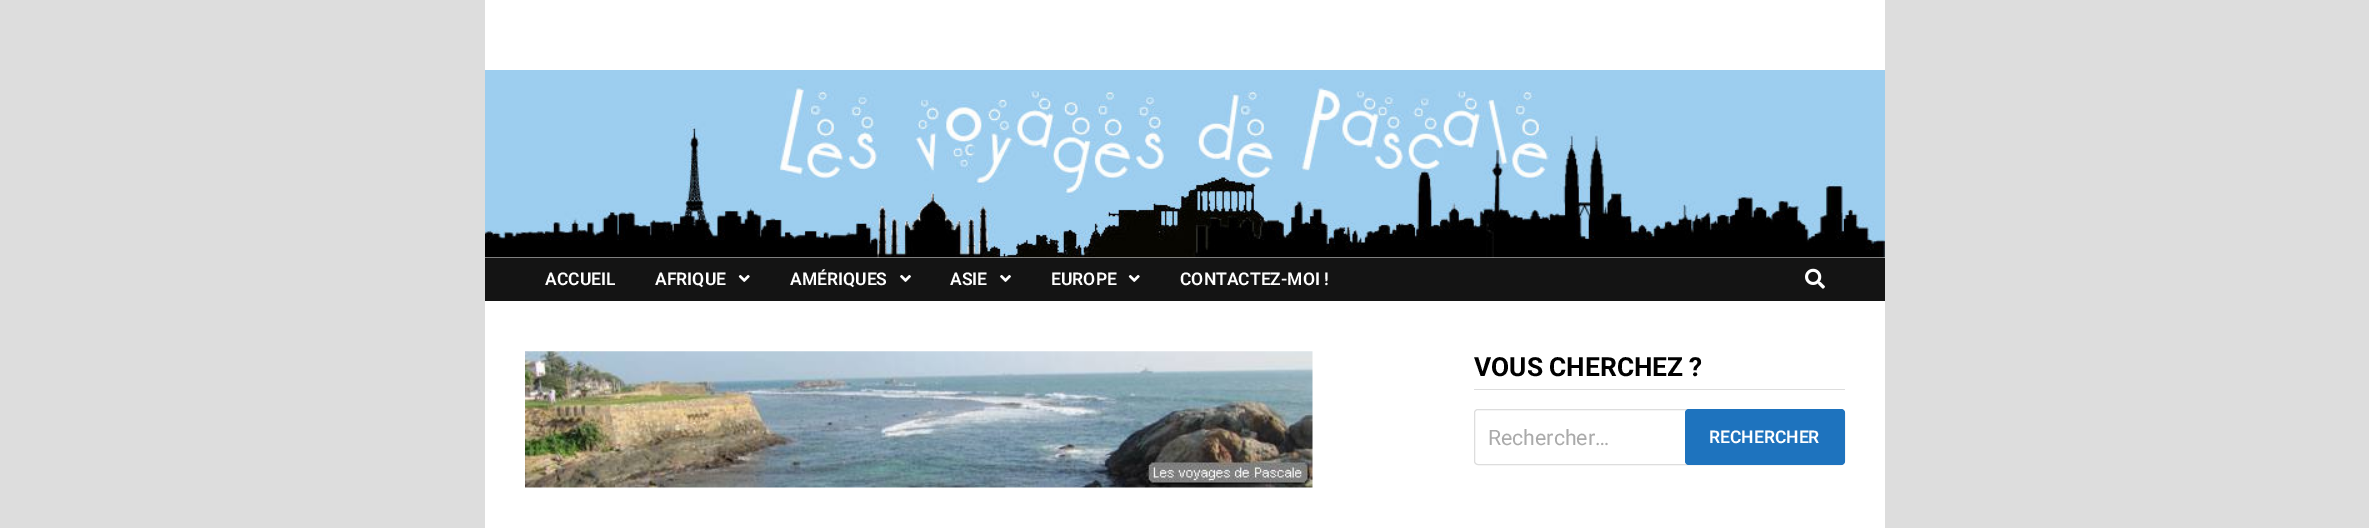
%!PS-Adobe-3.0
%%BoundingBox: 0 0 2369 528
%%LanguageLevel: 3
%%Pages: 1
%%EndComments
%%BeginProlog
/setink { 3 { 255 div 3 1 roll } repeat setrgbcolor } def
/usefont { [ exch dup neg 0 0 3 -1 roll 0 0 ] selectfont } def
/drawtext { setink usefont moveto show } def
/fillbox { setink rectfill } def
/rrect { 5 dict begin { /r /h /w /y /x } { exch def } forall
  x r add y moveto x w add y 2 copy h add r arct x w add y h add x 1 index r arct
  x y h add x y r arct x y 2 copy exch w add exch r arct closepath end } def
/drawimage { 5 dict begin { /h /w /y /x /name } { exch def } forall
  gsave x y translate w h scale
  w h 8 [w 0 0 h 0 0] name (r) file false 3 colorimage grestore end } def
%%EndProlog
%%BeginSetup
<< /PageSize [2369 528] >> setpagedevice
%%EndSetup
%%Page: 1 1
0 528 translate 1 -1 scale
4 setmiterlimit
0 0 2369 528 221 221 221 fillbox
485 0 1400 528 255 255 255 fillbox
(assets/img1.rgb) 485 70 1400 188 drawimage
485 258 1400 43 20 20 20 fillbox
(ACCUEIL) 545 285 /Roboto-SemiBold 17.5 255 255 255 drawtext
(AFRIQUE) 655 285 /Roboto-SemiBold 17.5 255 255 255 drawtext
(assets/img2.rgb) 738 275 12 7 drawimage
(AMÉRIQUES) 790 285 /Roboto-SemiBold 17.5 255 255 255 drawtext
(assets/img3.rgb) 900 275 11 7 drawimage
(ASIE) 950 285 /Roboto-SemiBold 17.5 255 255 255 drawtext
(assets/img3.rgb) 1000 275 11 7 drawimage
(EUROPE) 1051 285 /Roboto-SemiBold 17.5 255 255 255 drawtext
(assets/img2.rgb) 1128 275 12 7 drawimage
(CONTACTEZ-MOI !) 1180 285 /Roboto-SemiBold 17.5 255 255 255 drawtext
(assets/img4.rgb) 1805 268 20 21 drawimage
(assets/img5.rgb) 525 351 788 137 drawimage
1474 389 371 1 221 221 221 fillbox
(VOUS CHERCHEZ ?) 1474 376 /Roboto-Bold 26.25 0 0 0 drawtext
221 221 221 setink
1474.5 409.5 370 55 3.5 rrect stroke
(Rechercher…) 1488 445 /Roboto-Regular 21.25 170 170 170 drawtext
30 115 190 setink
1685 409 160 56 4 rrect fill
(RECHERCHER) 1709 443 /Roboto-SemiBold 17.5 255 255 255 drawtext
showpage
%%EOF
